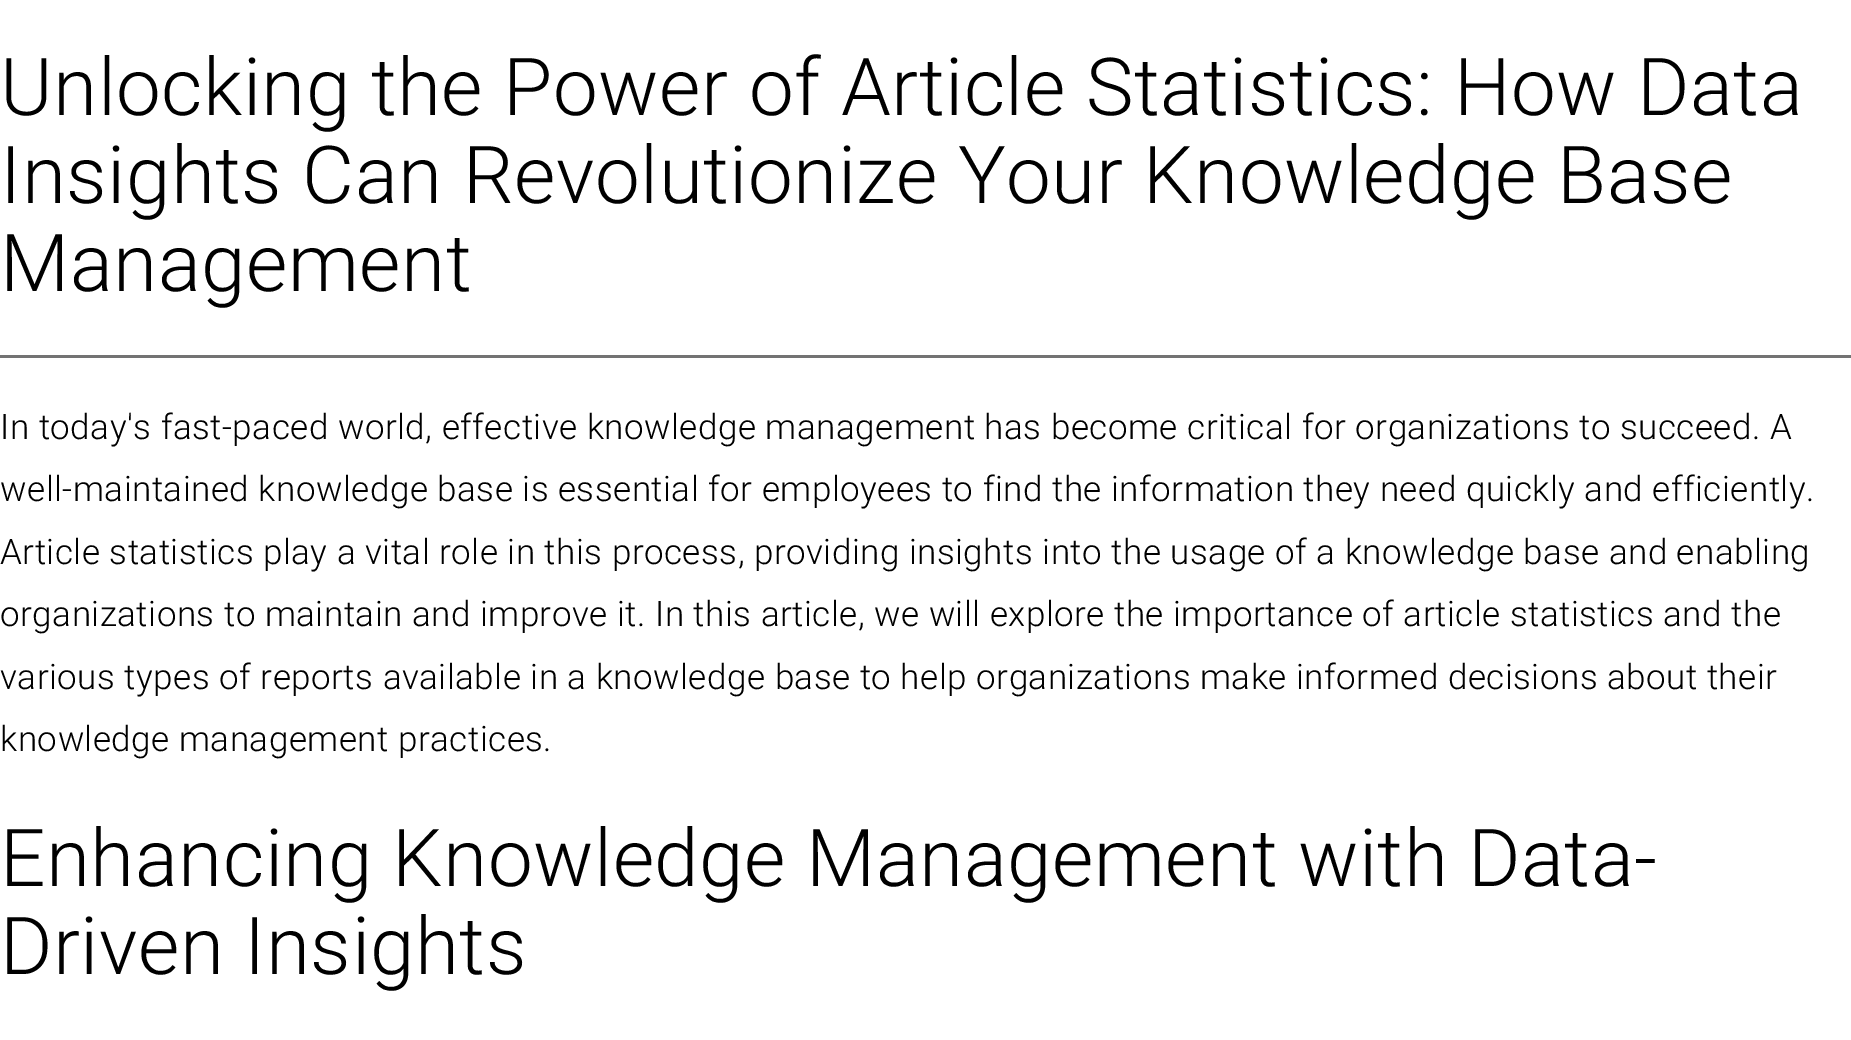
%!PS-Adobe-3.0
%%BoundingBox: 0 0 1851 1040
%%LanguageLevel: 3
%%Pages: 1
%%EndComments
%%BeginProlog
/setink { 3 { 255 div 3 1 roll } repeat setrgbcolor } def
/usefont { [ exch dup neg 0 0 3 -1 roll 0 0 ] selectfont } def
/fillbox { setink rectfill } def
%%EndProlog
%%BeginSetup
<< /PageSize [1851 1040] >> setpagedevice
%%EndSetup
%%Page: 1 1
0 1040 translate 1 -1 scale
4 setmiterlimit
0 0 1851 1040 255 255 255 fillbox
/Roboto-Light 80 usefont
0 0 0 setink
0 115 moveto 0.5 0 (Unlocking the Power of Article Statistics: How Data) ashow
0 203 moveto 0.5 0 (Insights Can Revolutionize Your Knowledge Base) ashow
0 291 moveto 0.5 0 (Management) ashow
0 355 1851 3 115 115 115 fillbox
/Roboto-Light 35 usefont
0 0 0 setink
0 439 moveto 0.5 0 (In today's fast-paced world, effective knowledge management has become critical for organizations to succeed. A) ashow
0 501 moveto 0.5 0 (well-maintained knowledge base is essential for employees to find the information they need quickly and efficiently.) ashow
0 564 moveto 0.5 0 (Article statistics play a vital role in this process, providing insights into the usage of a knowledge base and enabling) ashow
0 626 moveto 0.5 0 (organizations to maintain and improve it. In this article, we will explore the importance of article statistics and the) ashow
0 689 moveto 0.5 0 (various types of reports available in a knowledge base to help organizations make informed decisions about their) ashow
0 751 moveto 0.5 0 (knowledge management practices.) ashow
/Roboto-Light 80 usefont
0 886 moveto 0.5 0 (Enhancing Knowledge Management with Data-) ashow
0 974 moveto 0.5 0 (Driven Insights) ashow
showpage
%%EOF
